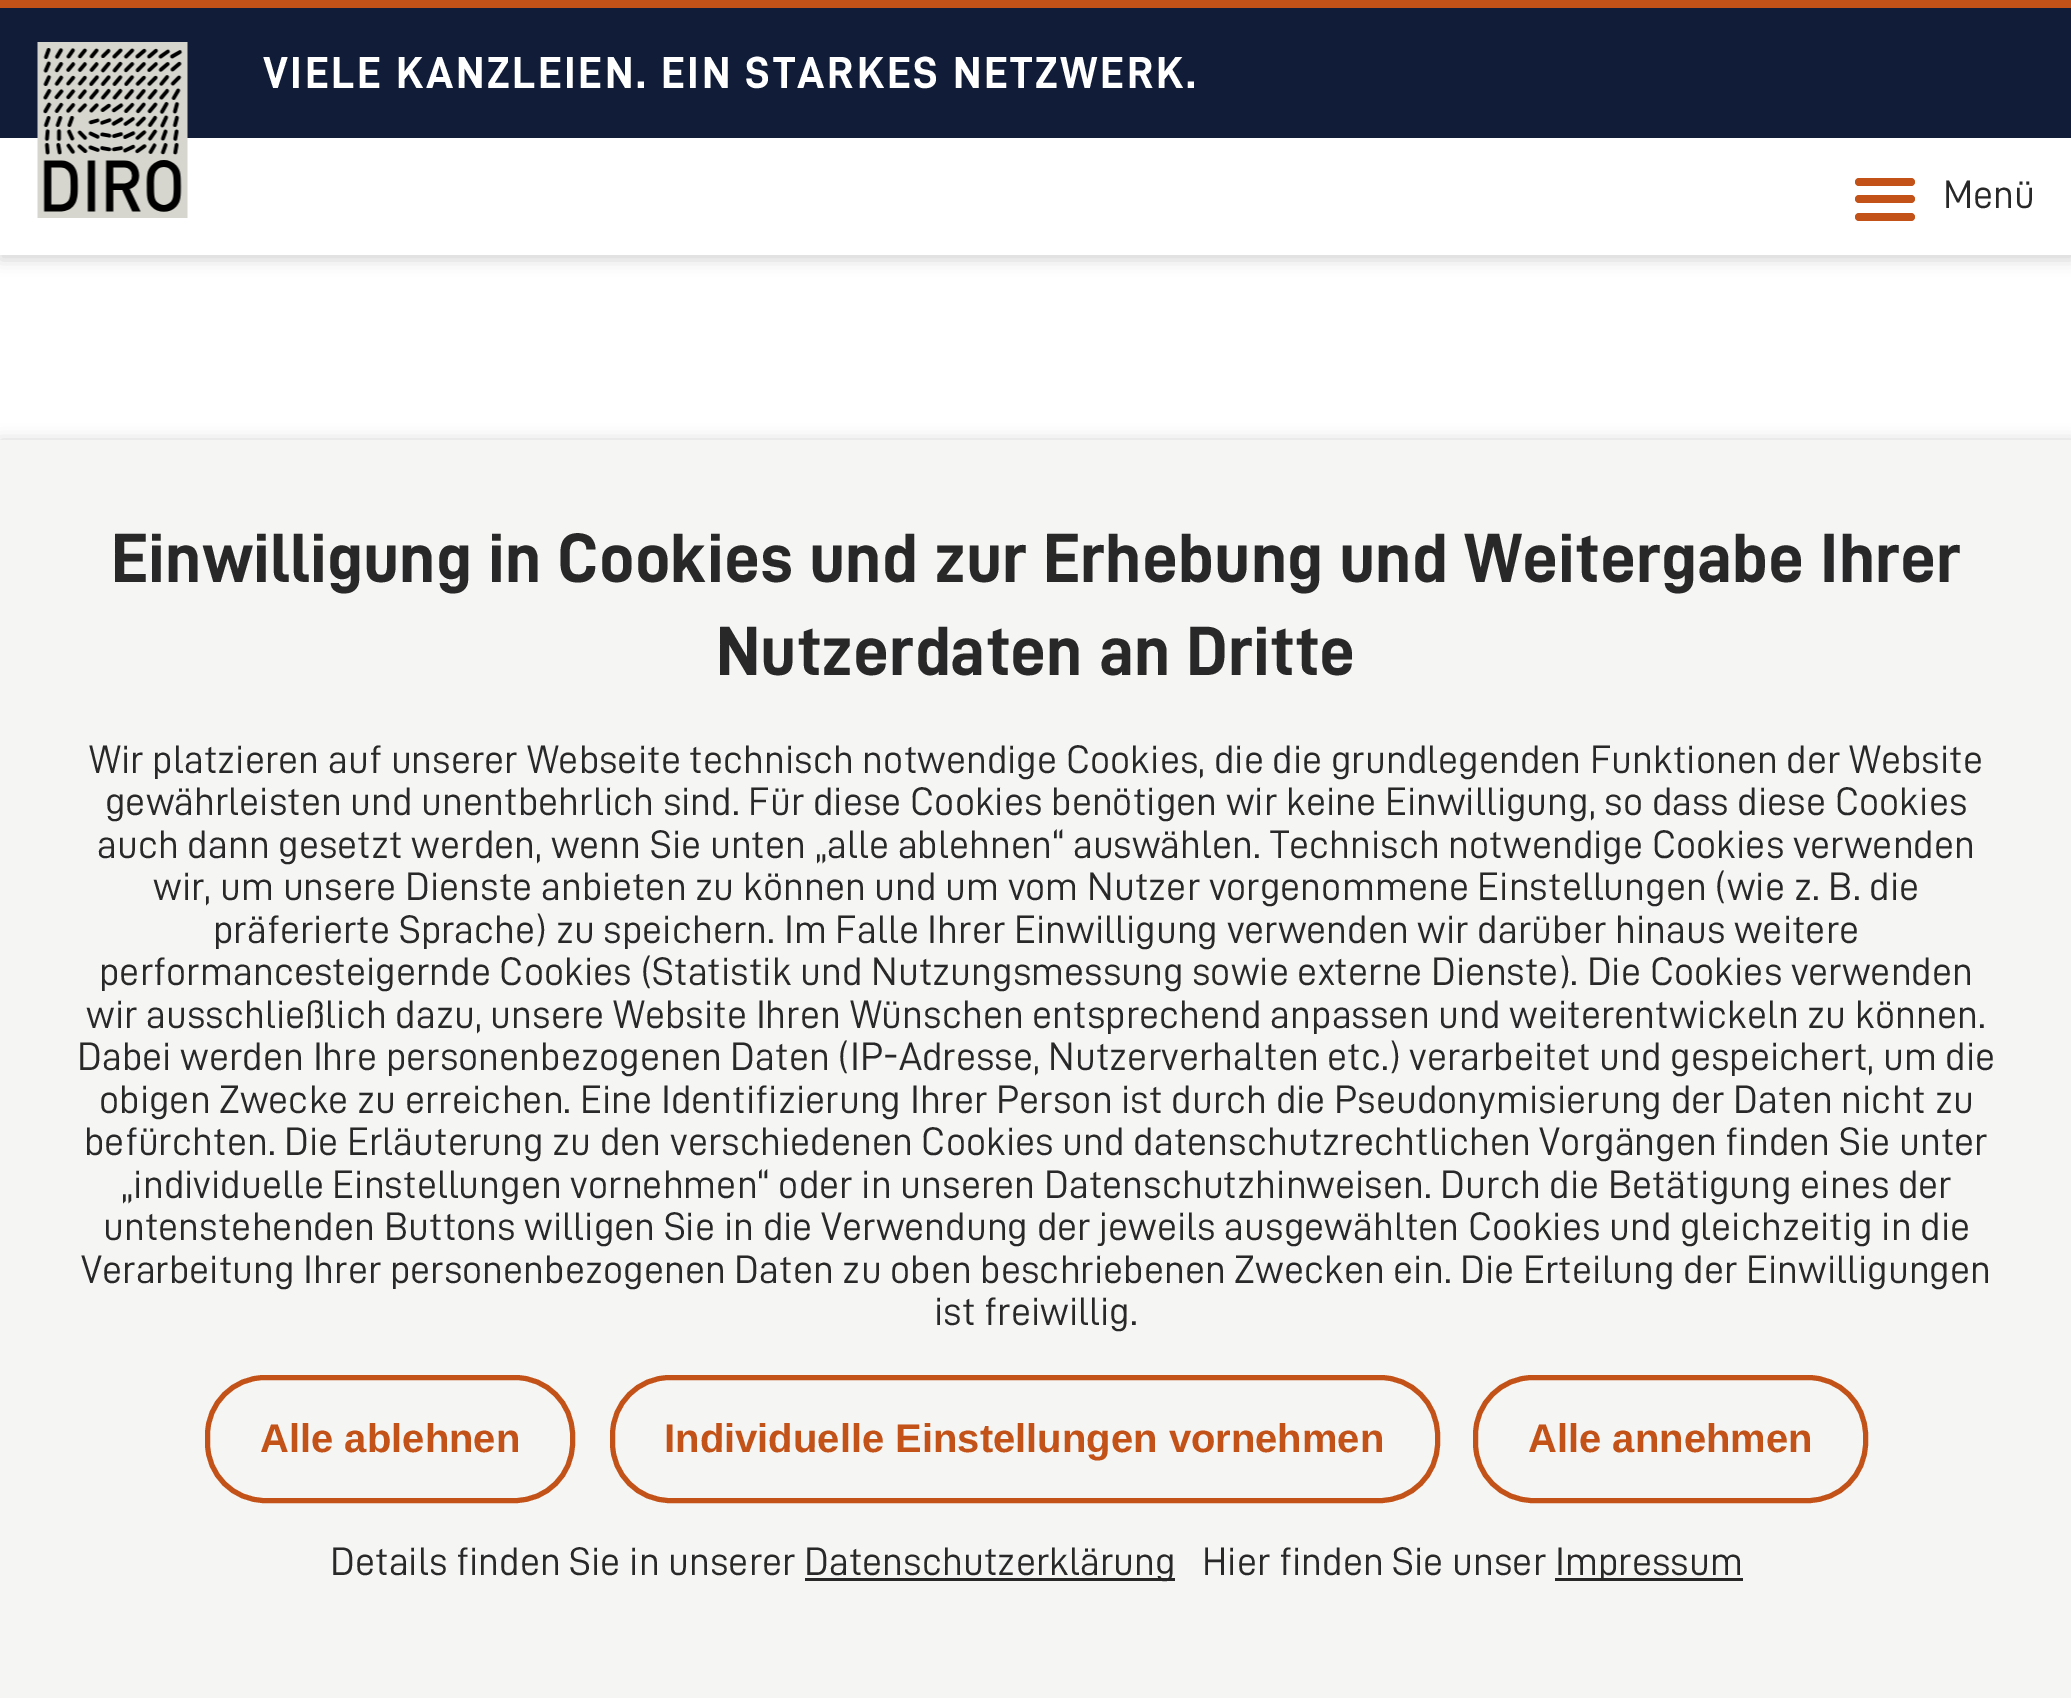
%!PS-Adobe-3.0
%%BoundingBox: 0 0 2071 1698
%%LanguageLevel: 3
%%Pages: 1
%%EndComments
%%BeginProlog
/setink { 3 { 255 div 3 1 roll } repeat setrgbcolor } def
/usefont { [ exch dup neg 0 0 3 -1 roll 0 0 ] selectfont } def
/drawtext { setink usefont moveto show } def
/fillbox { setink rectfill } def
/setalpha { dup .setfillconstantalpha .setstrokeconstantalpha } def
/rrect { 5 dict begin { /r /h /w /y /x } { exch def } forall
  x r add y moveto x w add y 2 copy h add r arct x w add y h add x 1 index r arct
  x y h add x y r arct x y 2 copy exch w add exch r arct closepath end } def
/softshadow { 12 dict begin { /a /b /q /h /w /y /x } { exch def } forall gsave /was 0 def
  9 -2 -9 { dup b mul 4 div /e exch def 1 sub .425 mul 2.718 exch exp 1 add a .99 .min exch div /now exch def
    1 1 now sub 1 was sub div sub setalpha /was now def
    w h .min e 2 mul add 0 gt { x e sub y e sub w e 2 mul add h e 2 mul add
      q e add b .6 mul add w h .min 2 div e add .min 0 .max rrect fill } if } for grestore end } def
/drawimage { 5 dict begin { /h /w /y /x /name } { exch def } forall
  gsave x y translate w h scale
  w h 8 [w 0 0 h 0 0] name (r) file false 3 colorimage grestore end } def
%%EndProlog
%%BeginSetup
<< /PageSize [2071 1698] /PageUsesTransparency true >> setpagedevice
%%EndSetup
%%Page: 1 1
0 .pushpdf14devicefilter
0 1698 translate 1 -1 scale
4 setmiterlimit
0 0 2071 1698 255 255 255 fillbox
0 0 2071 8 194 82 24 fillbox
0 8 2071 130 17 28 57 fillbox
gsave
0 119 moveto 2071 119 lineto 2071 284 lineto 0 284 lineto closepath 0 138 moveto 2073 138 lineto 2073 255 lineto 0 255 lineto closepath eoclip newpath
0 0 0 setink
0 143 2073 117 0 7.5 0.16 softshadow
grestore
(assets/img1.rgb) 37 42 151 176 drawimage
/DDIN-Bold 45 usefont
255 255 255 setink
263 88 moveto 2.5 0 (VIELE KANZLEIEN. EIN STARKES NETZWERK.) ashow
194 82 24 setink
1855 178 60 8 4 rrect fill
(Menü) 1943 208 /DDIN-Regular 40 40 40 40 drawtext
194 82 24 setink
1855 195 60 8 4 rrect fill
1855 213 60 8 4 rrect fill
0 0 0 setink
0 440 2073 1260 0 7.5 0.16 softshadow
0 440 2071 1258 245 245 244 fillbox
(Einwilligung in Cookies und zur Erhebung und Weitergabe Ihrer) 111 582 /DDIN-Bold 70 40 40 40 drawtext
(Nutzerdaten an Dritte) 716 675 /DDIN-Bold 70 40 40 40 drawtext
(Wir platzieren auf unserer Webseite technisch notwendige Cookies, die die grundlegenden Funktionen der Website) 89 773 /DDIN-Regular 40 40 40 40 drawtext
(gewährleisten und unentbehrlich sind. Für diese Cookies benötigen wir keine Einwilligung, so dass diese Cookies) 105 815 /DDIN-Regular 40 40 40 40 drawtext
(auch dann gesetzt werden, wenn Sie unten „alle ablehnen“ auswählen. Technisch notwendige Cookies verwenden) 97 858 /DDIN-Regular 40 40 40 40 drawtext
(wir, um unsere Dienste anbieten zu können und um vom Nutzer vorgenommene Einstellungen \(wie z. B. die) 153 900 /DDIN-Regular 40 40 40 40 drawtext
(präferierte Sprache\) zu speichern. Im Falle Ihrer Einwilligung verwenden wir darüber hinaus weitere) 213 943 /DDIN-Regular 40 40 40 40 drawtext
(performancesteigernde Cookies \(Statistik und Nutzungsmessung sowie externe Dienste\). Die Cookies verwenden) 99 985 /DDIN-Regular 40 40 40 40 drawtext
(wir ausschließlich dazu, unsere Website Ihren Wünschen entsprechend anpassen und weiterentwickeln zu können.) 86 1028 /DDIN-Regular 40 40 40 40 drawtext
(Dabei werden Ihre personenbezogenen Daten \(IP-Adresse, Nutzerverhalten etc.\) verarbeitet und gespeichert, um die) 77 1070 /DDIN-Regular 40 40 40 40 drawtext
(obigen Zwecke zu erreichen. Eine Identifizierung Ihrer Person ist durch die Pseudonymisierung der Daten nicht zu) 99 1113 /DDIN-Regular 40 40 40 40 drawtext
(befürchten. Die Erläuterung zu den verschiedenen Cookies und datenschutzrechtlichen Vorgängen finden Sie unter) 84 1155 /DDIN-Regular 40 40 40 40 drawtext
(„individuelle Einstellungen vornehmen“ oder in unseren Datenschutzhinweisen. Durch die Betätigung eines der) 121 1198 /DDIN-Regular 40 40 40 40 drawtext
(untenstehenden Buttons willigen Sie in die Verwendung der jeweils ausgewählten Cookies und gleichzeitig in die) 103 1240 /DDIN-Regular 40 40 40 40 drawtext
(Verarbeitung Ihrer personenbezogenen Daten zu oben beschriebenen Zwecken ein. Die Erteilung der Einwilligungen) 81 1283 /DDIN-Regular 40 40 40 40 drawtext
(ist freiwillig.) 934 1325 /DDIN-Regular 40 40 40 40 drawtext
194 82 24 setink
5 setlinewidth
207.5 1377.5 365 123 57.5 rrect stroke
(Alle ablehnen) 260 1452 /LiberationSans-Bold 40 194 82 24 drawtext
612.5 1377.5 825 123 57.5 rrect stroke
(Individuelle Einstellungen vornehmen) 664 1452 /LiberationSans-Bold 40 194 82 24 drawtext
1475.5 1377.5 390 123 57.5 rrect stroke
(Alle annehmen) 1528 1452 /LiberationSans-Bold 40 194 82 24 drawtext
(Details finden Sie in unserer) 330 1575 /DDIN-Regular 40 40 40 40 drawtext
805 1578 370 3 40 40 40 fillbox
(Datenschutzerklärung) 804 1575 /DDIN-Regular 40 40 40 40 drawtext
(Hier finden Sie unser) 1202 1575 /DDIN-Regular 40 40 40 40 drawtext
1555 1578 188 3 40 40 40 fillbox
(Impressum) 1555 1575 /DDIN-Regular 40 40 40 40 drawtext
.poppdf14devicefilter showpage
%%EOF
